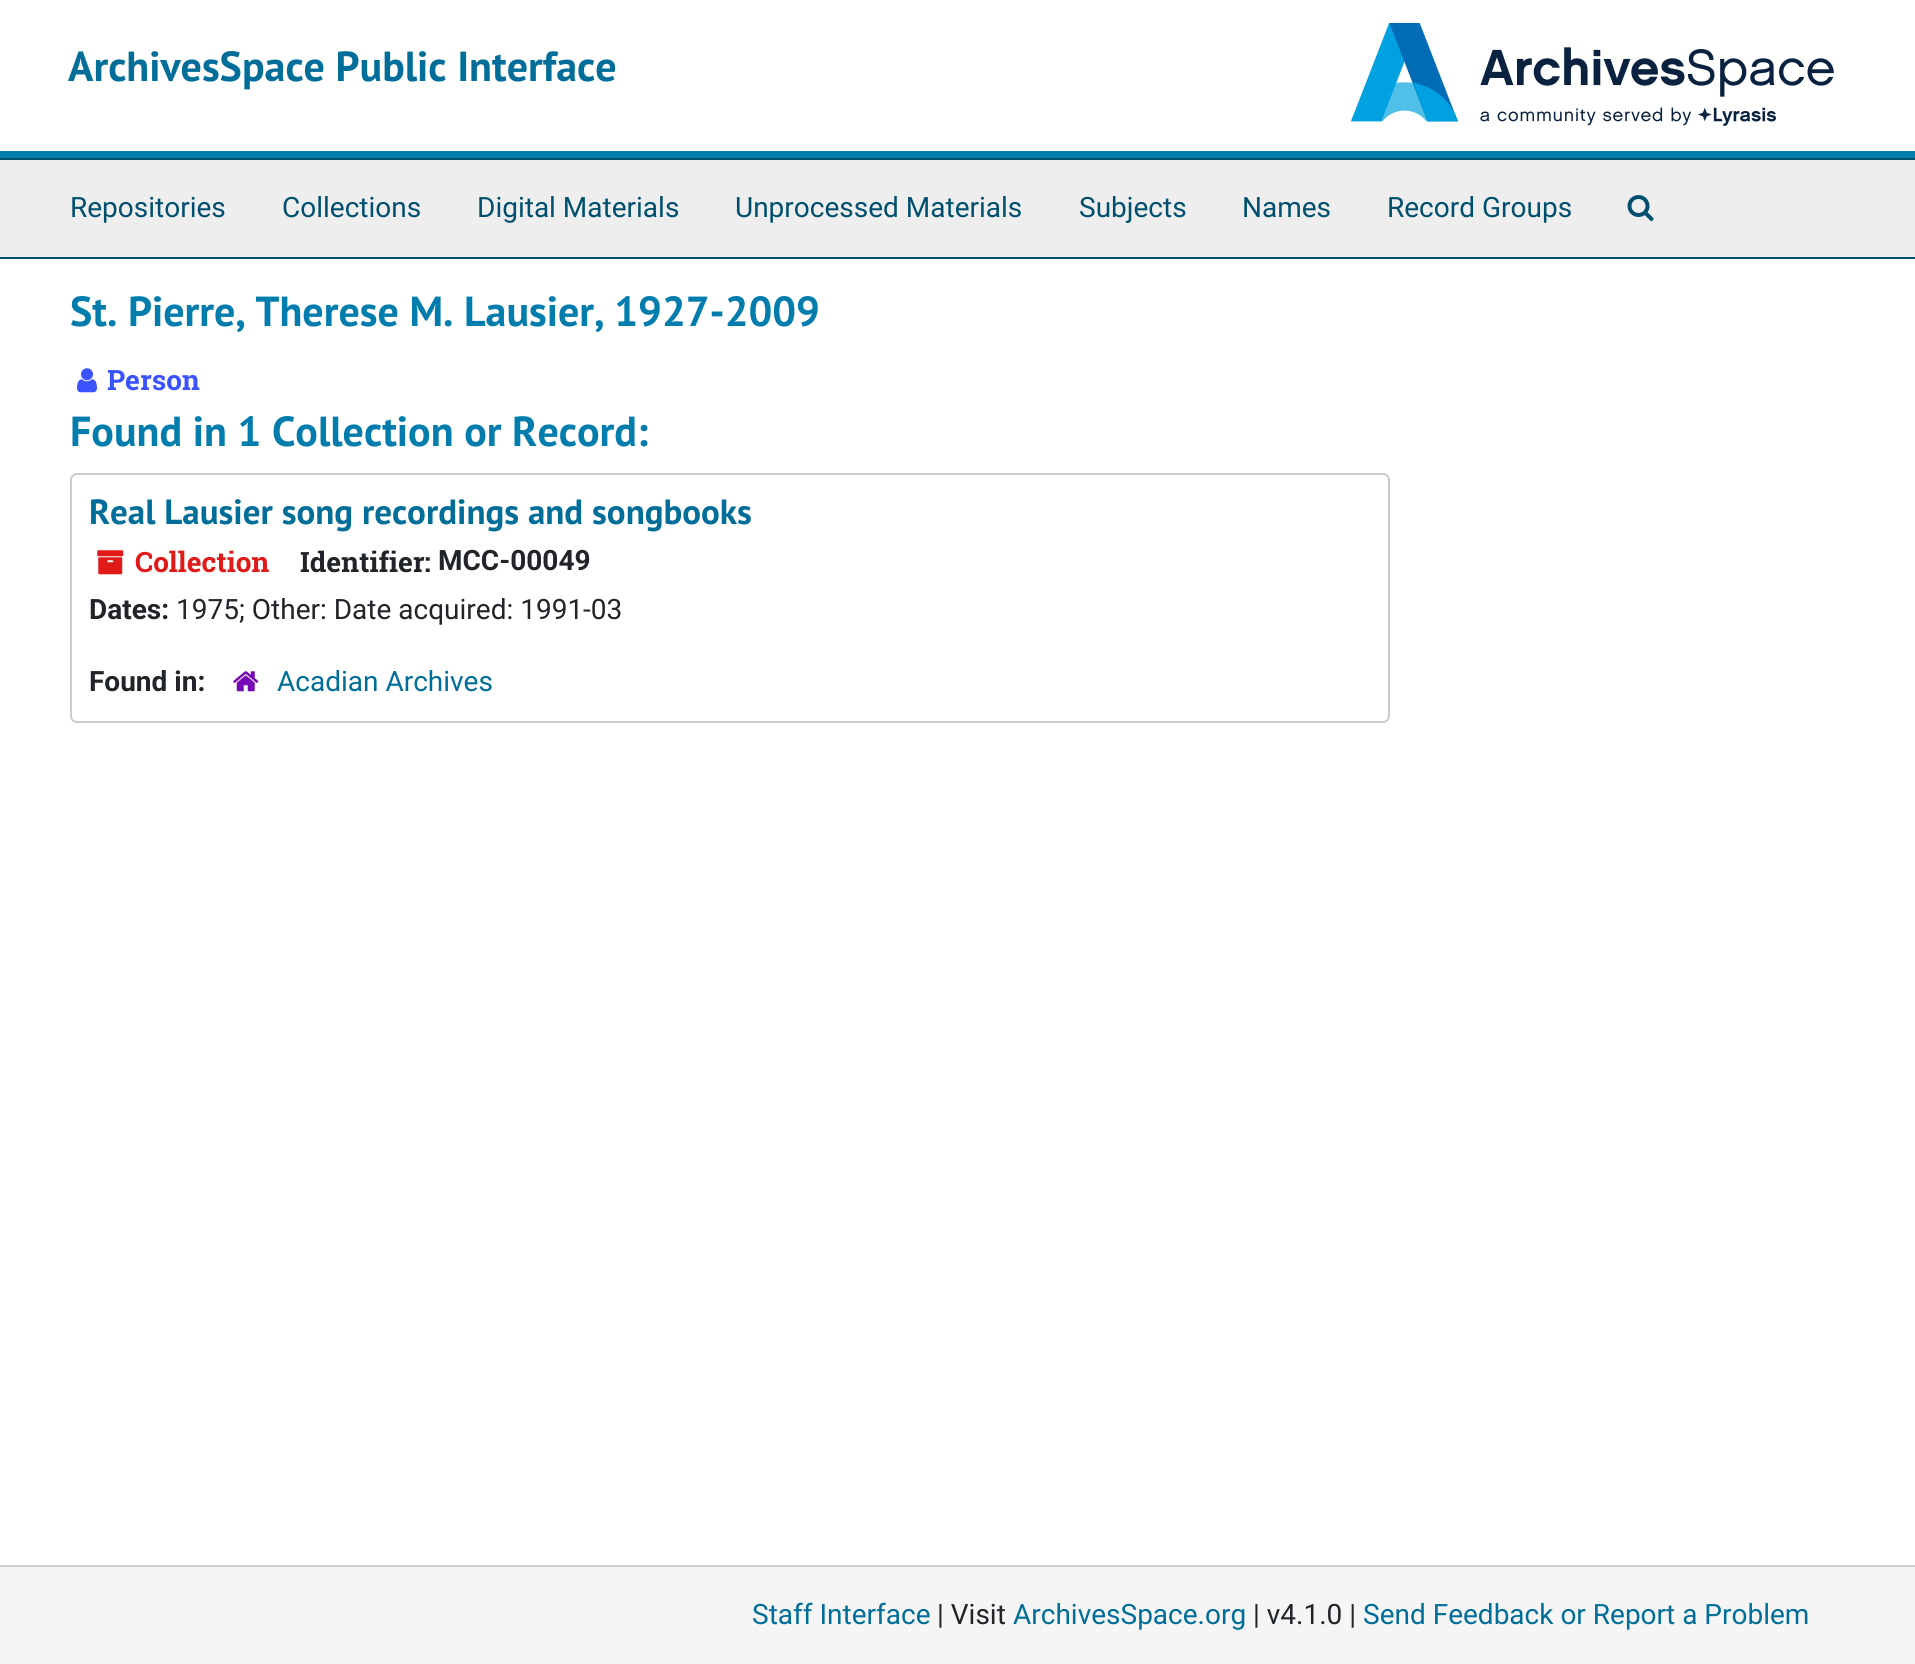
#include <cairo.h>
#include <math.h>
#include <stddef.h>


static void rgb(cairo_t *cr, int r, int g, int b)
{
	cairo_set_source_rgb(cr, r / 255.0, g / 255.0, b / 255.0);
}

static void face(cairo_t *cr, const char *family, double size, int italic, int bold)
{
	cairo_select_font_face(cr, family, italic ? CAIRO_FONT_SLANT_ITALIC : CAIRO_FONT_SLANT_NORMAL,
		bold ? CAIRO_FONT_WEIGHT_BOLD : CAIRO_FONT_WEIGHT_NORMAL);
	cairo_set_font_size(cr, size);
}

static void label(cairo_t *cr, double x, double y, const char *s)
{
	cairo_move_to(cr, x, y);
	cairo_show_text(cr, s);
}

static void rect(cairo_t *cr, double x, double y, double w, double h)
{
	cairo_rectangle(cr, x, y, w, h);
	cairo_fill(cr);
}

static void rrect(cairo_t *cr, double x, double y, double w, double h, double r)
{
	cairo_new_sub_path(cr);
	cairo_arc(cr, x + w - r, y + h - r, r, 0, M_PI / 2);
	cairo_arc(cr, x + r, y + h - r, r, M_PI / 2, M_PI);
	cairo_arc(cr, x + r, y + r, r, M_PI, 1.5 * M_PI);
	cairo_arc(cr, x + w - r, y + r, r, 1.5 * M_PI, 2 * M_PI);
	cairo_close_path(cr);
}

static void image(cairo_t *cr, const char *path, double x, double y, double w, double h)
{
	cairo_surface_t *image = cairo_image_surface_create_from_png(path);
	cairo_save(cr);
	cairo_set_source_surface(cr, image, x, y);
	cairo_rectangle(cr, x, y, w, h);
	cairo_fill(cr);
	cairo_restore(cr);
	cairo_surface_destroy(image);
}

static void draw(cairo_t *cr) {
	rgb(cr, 255, 255, 255);
	cairo_paint(cr);
	rgb(cr, 0, 124, 173);
	rect(cr, 0, 151, 1915, 7);
	face(cr, "PT Sans", 42, 0, 1);
	rgb(cr, 0, 110, 153);
	label(cr, 68, 81, "ArchivesSpace Public Interface");
	image(cr, "image0.png", 1351, 23, 483, 103);
	rgb(cr, 238, 238, 238);
	rect(cr, 0, 160, 1915, 97);
	rgb(cr, 0, 79, 111);
	rect(cr, 0, 158, 1915, 2);
	rect(cr, 0, 257, 1915, 2);
	face(cr, "Roboto", 28, 0, 0);
	label(cr, 70, 217, "Repositories");
	label(cr, 282, 217, "Collections");
	label(cr, 477, 217, "Digital Materials");
	label(cr, 735, 217, "Unprocessed Materials");
	label(cr, 1079, 217, "Subjects");
	label(cr, 1242, 217, "Names");
	label(cr, 1387, 217, "Record Groups");
	image(cr, "image1.png", 1627, 195, 27, 26);
	face(cr, "PT Sans", 42, 0, 1);
	rgb(cr, 0, 124, 173);
	label(cr, 70, 326, "St. Pierre, Therese M. Lausier, 1927-2009");
	image(cr, "image2.png", 77, 368, 20, 25);
	face(cr, "Roboto Slab", 28, 0, 1);
	rgb(cr, 59, 82, 255);
	label(cr, 107, 390, "Person");
	face(cr, "PT Sans", 42, 0, 1);
	rgb(cr, 0, 124, 173);
	label(cr, 70, 446, "Found in 1 Collection or Record:");
	rrect(cr, 71, 474, 1318, 248, 6);
	rgb(cr, 204, 204, 204);
	cairo_stroke(cr);
	face(cr, "PT Sans", 35, 0, 1);
	rgb(cr, 0, 110, 153);
	label(cr, 89, 524, "Real Lausier song recordings and songbooks");
	image(cr, "image3.png", 97, 550, 27, 25);
	face(cr, "Roboto Slab", 28, 0, 1);
	rgb(cr, 224, 25, 25);
	label(cr, 135, 572, "Collection");
	rgb(cr, 33, 37, 41);
	label(cr, 300, 572, "Identifier:");
	face(cr, "Roboto", 28, 0, 1);
	label(cr, 438, 570, "MCC-00049");
	label(cr, 89, 619, "Dates:");
	face(cr, "Roboto", 28, 0, 0);
	label(cr, 176, 619, "1975; Other: Date acquired: 1991-03");
	face(cr, "Roboto", 28, 0, 1);
	label(cr, 89, 691, "Found in:");
	image(cr, "image4.png", 233, 671, 26, 21);
	face(cr, "Roboto", 28, 0, 0);
	rgb(cr, 0, 110, 153);
	label(cr, 277, 691, "Acadian Archives");
	rgb(cr, 245, 245, 245);
	rect(cr, 0, 1567, 1915, 97);
	rgb(cr, 204, 204, 204);
	rect(cr, 0, 1565, 1915, 2);
	rgb(cr, 0, 110, 153);
	label(cr, 752, 1624, "Staff Interface");
	rgb(cr, 33, 37, 41);
	label(cr, 937, 1624, "| Visit");
	rgb(cr, 0, 110, 153);
	label(cr, 1013, 1624, "ArchivesSpace.org");
	rgb(cr, 33, 37, 41);
	label(cr, 1253, 1624, "| v4.1.0 |");
	rgb(cr, 0, 110, 153);
	label(cr, 1363, 1624, "Send Feedback or Report a Problem");
}

int main(void) {
	cairo_surface_t *surface = cairo_image_surface_create(CAIRO_FORMAT_RGB24, 1915, 1664);
	cairo_t *cr = cairo_create(surface);
	cairo_font_options_t *options = cairo_font_options_create();
	cairo_font_options_set_hint_metrics(options, CAIRO_HINT_METRICS_OFF);
	cairo_font_options_set_hint_style(options, CAIRO_HINT_STYLE_NONE);
	cairo_set_font_options(cr, options);
	cairo_set_miter_limit(cr, 4);
	draw(cr);
	cairo_surface_write_to_png(surface, "render.png");
	cairo_font_options_destroy(options);
	cairo_destroy(cr);
	cairo_surface_destroy(surface);
	return 0;
}
